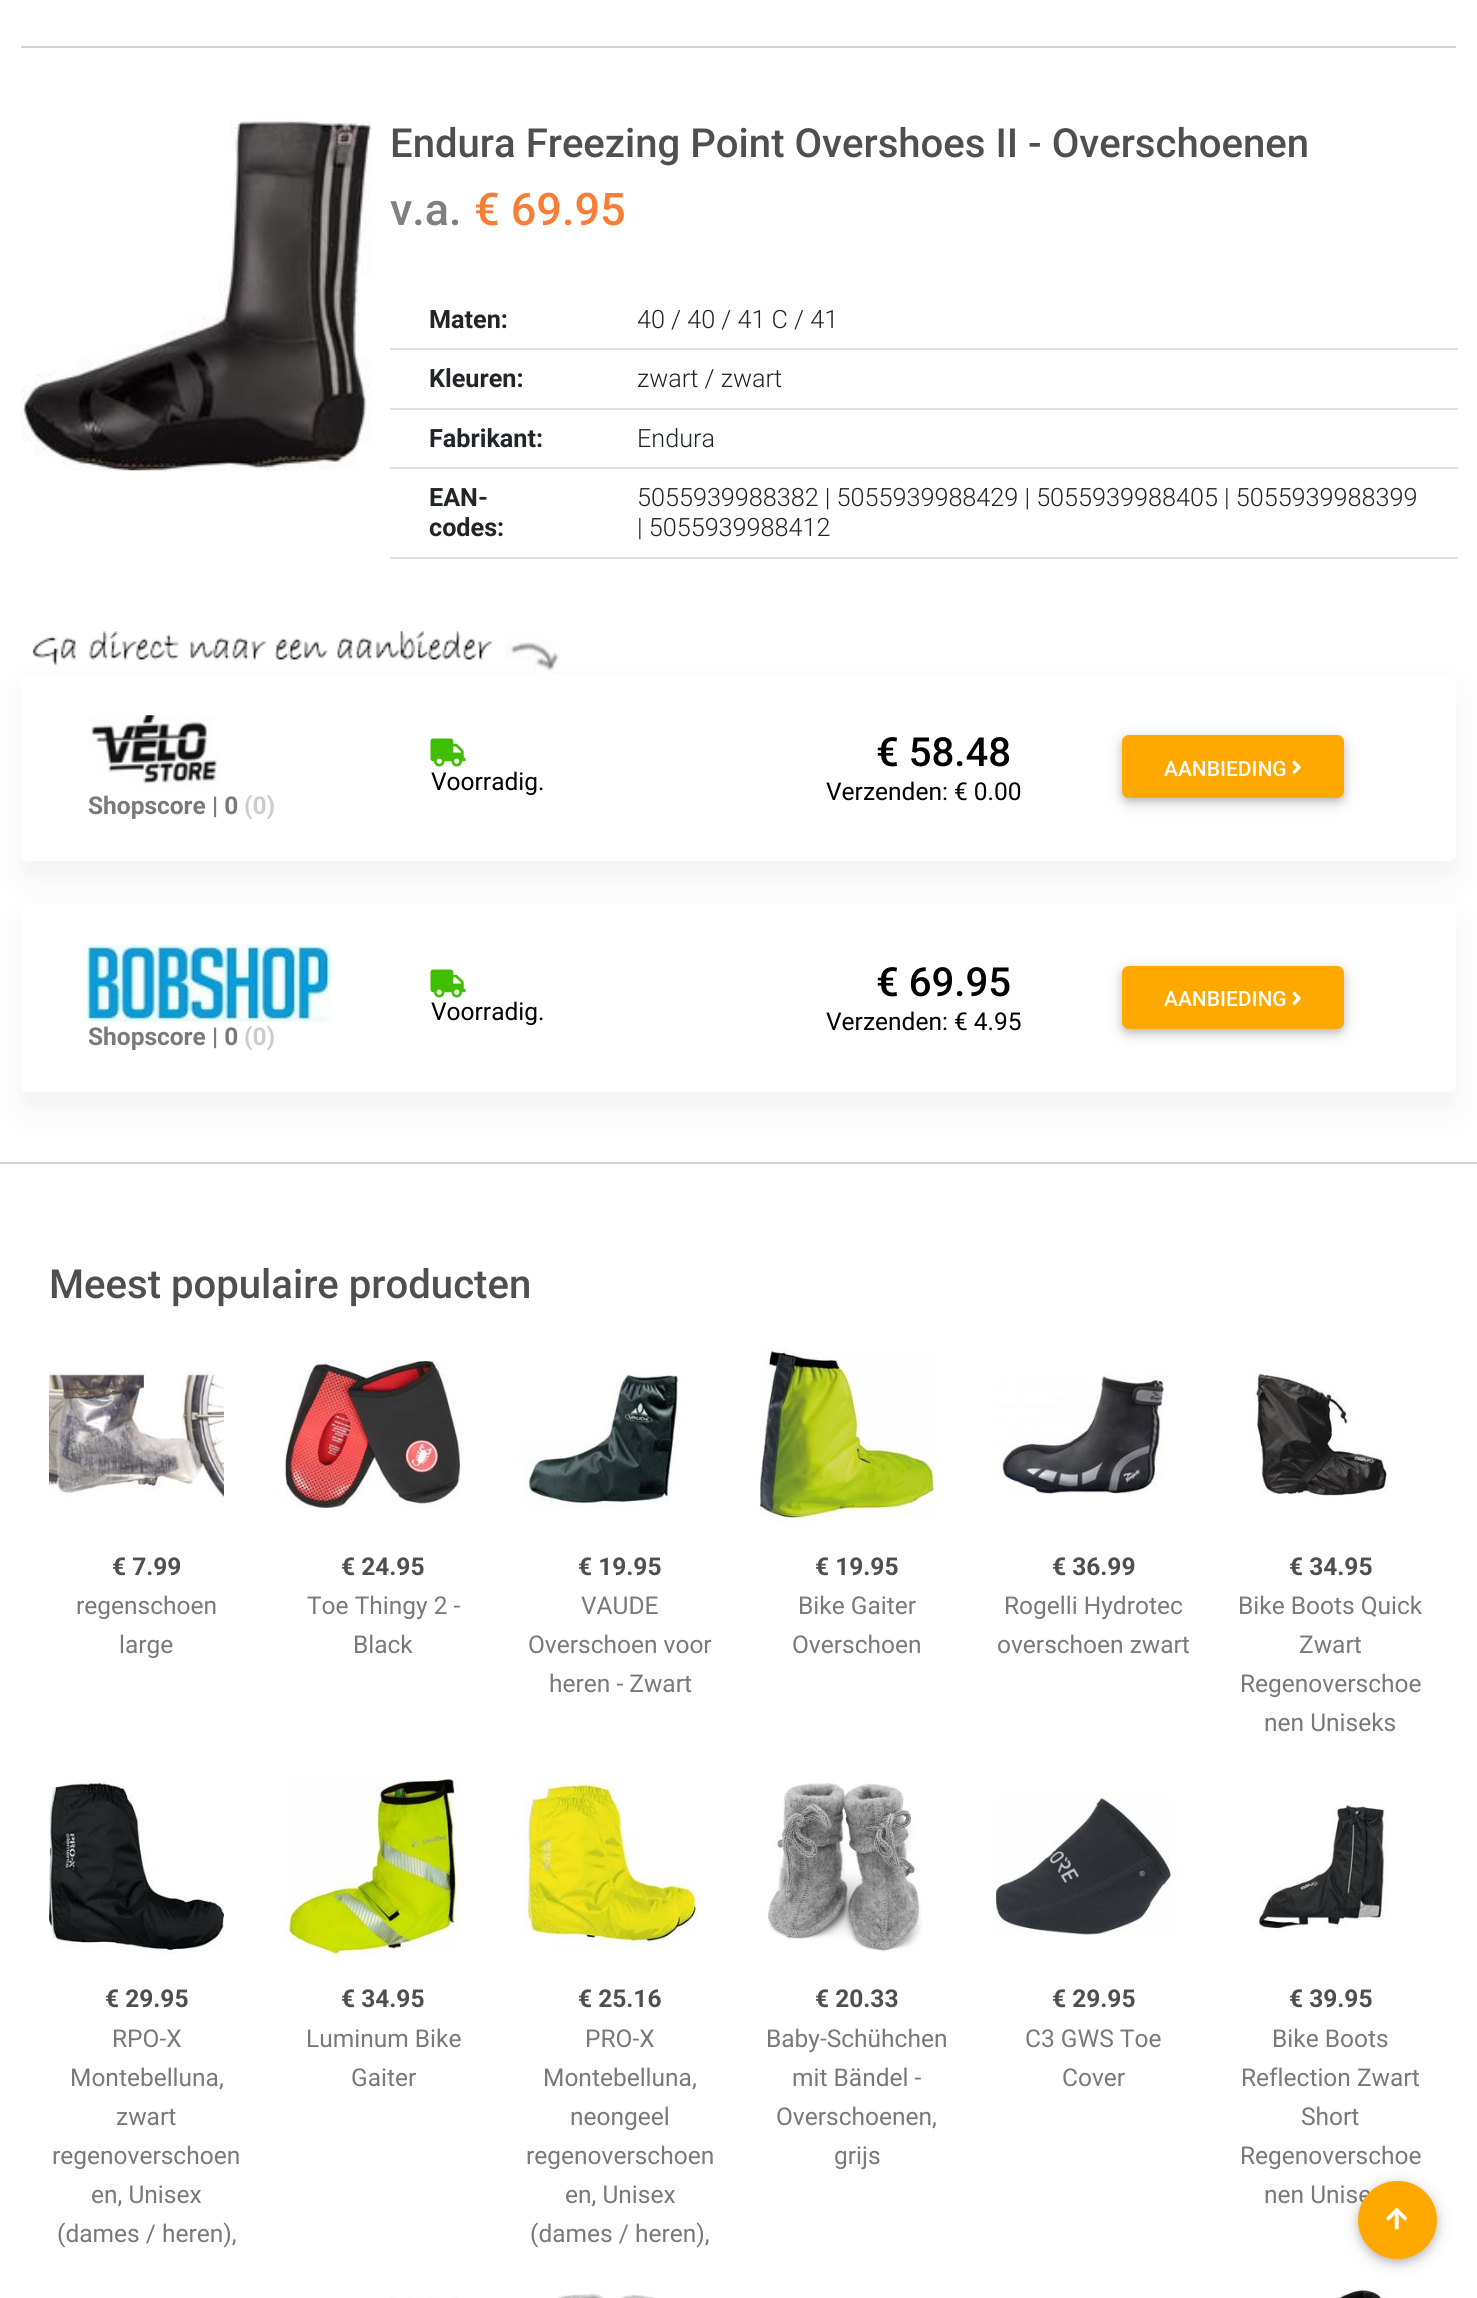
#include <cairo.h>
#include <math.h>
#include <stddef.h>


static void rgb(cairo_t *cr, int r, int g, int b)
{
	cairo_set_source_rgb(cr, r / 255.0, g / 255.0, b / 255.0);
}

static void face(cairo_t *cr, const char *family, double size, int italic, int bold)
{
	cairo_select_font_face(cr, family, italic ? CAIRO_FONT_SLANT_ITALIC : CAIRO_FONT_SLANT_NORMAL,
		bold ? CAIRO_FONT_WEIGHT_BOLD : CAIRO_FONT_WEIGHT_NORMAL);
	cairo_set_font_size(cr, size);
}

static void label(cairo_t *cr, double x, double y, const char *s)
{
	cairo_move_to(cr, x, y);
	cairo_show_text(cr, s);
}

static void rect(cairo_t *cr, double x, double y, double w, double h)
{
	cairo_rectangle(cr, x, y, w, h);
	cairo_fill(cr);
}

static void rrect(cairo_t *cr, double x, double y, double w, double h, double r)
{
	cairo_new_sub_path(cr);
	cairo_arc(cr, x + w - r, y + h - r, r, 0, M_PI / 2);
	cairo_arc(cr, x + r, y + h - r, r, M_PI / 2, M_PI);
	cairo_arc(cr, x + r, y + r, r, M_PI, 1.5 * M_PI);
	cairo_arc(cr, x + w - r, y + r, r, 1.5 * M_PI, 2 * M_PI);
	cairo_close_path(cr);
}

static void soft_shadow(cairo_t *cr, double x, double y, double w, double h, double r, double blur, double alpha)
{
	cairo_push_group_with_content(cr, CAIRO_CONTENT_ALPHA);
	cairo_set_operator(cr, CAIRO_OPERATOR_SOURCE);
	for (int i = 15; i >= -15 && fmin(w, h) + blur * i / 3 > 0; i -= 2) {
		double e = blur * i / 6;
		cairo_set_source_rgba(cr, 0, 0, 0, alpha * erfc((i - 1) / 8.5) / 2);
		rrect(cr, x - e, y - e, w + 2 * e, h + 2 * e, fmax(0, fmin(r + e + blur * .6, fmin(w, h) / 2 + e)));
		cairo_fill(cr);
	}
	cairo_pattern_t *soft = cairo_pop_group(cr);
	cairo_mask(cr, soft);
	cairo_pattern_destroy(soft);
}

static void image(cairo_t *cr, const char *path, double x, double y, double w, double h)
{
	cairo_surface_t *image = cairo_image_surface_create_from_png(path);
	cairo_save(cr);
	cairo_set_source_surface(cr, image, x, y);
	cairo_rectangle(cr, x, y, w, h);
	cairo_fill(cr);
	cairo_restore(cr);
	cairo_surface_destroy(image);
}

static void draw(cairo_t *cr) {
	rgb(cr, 255, 255, 255);
	cairo_paint(cr);
	rgb(cr, 211, 211, 211);
	rect(cr, 21, 46, 1435, 2);
	image(cr, "image0.png", 21, 120, 350, 351);
	face(cr, "Roboto Medium", 40.1, 0, 0);
	rgb(cr, 79, 79, 79);
	label(cr, 390, 157, "Endura Freezing Point Overshoes II - Overschoenen");
	face(cr, "Roboto Medium", 45, 0, 0);
	rgb(cr, 128, 128, 128);
	label(cr, 390, 225, "v.a.");
	rgb(cr, 247, 126, 54);
	label(cr, 474, 225, "€ 69.95");
	face(cr, "Roboto", 25.2, 0, 1);
	rgb(cr, 33, 37, 41);
	label(cr, 429, 328, "Maten:");
	rgb(cr, 224, 224, 224);
	rect(cr, 390, 348, 1068, 2);
	face(cr, "Roboto Light", 25.2, 0, 0);
	rgb(cr, 33, 37, 41);
	label(cr, 637, 328, "40 / 40 / 41 C / 41");
	face(cr, "Roboto", 25.2, 0, 1);
	label(cr, 429, 387, "Kleuren:");
	rgb(cr, 224, 224, 224);
	rect(cr, 390, 408, 1068, 2);
	face(cr, "Roboto Light", 25.2, 0, 0);
	rgb(cr, 33, 37, 41);
	label(cr, 637, 387, "zwart / zwart");
	face(cr, "Roboto", 25.2, 0, 1);
	label(cr, 429, 447, "Fabrikant:");
	rgb(cr, 224, 224, 224);
	rect(cr, 390, 467, 1068, 2);
	face(cr, "Roboto Light", 25.2, 0, 0);
	rgb(cr, 33, 37, 41);
	label(cr, 637, 447, "Endura");
	face(cr, "Roboto", 25.2, 0, 1);
	label(cr, 429, 506, "EAN-");
	label(cr, 429, 536, "codes:");
	rgb(cr, 224, 224, 224);
	rect(cr, 390, 557, 1068, 2);
	face(cr, "Roboto Light", 25.2, 0, 0);
	rgb(cr, 33, 37, 41);
	label(cr, 637, 506, "5055939988382 | 5055939988429 | 5055939988405 | 5055939988399");
	label(cr, 637, 536, "| 5055939988412");
	image(cr, "image1.png", 32, 631, 528, 42);
	rgb(cr, 0, 0, 0);
	soft_shadow(cr, 21, 691, 1435, 188, 7, 17.5, 0.05);
	rgb(cr, 255, 255, 255);
	rrect(cr, 21, 674, 1435, 187, 7);
	cairo_fill(cr);
	face(cr, "Roboto Medium", 40.1, 0, 0);
	rgb(cr, 0, 0, 0);
	label(cr, 876, 766, "€ 58.48");
	face(cr, "Roboto", 24.5, 0, 0);
	label(cr, 826, 800, "Verzenden: € 0.00");
	rgb(cr, 0, 0, 0);
	soft_shadow(cr, 1122, 739, 222, 63, 7, 9, 0.1);
	soft_shadow(cr, 1122, 739, 222, 63, 7, 4.5, 0.2);
	rgb(cr, 255, 169, 0);
	rrect(cr, 1122, 735, 222, 63, 7);
	cairo_fill(cr);
	face(cr, "Roboto Medium", 21, 0, 0);
	rgb(cr, 255, 255, 255);
	label(cr, 1164, 776, "AANBIEDING");
	image(cr, "image2.png", 1292, 760, 9, 14);
	image(cr, "image3.png", 430, 738, 36, 29);
	face(cr, "Roboto", 24.5, 0, 0);
	rgb(cr, 0, 0, 0);
	label(cr, 431, 790, "Voorradig.");
	image(cr, "image4.png", 88, 715, 132, 70);
	face(cr, "Roboto", 24.5, 0, 1);
	rgb(cr, 121, 121, 121);
	label(cr, 88, 814, "Shopscore | 0");
	rgb(cr, 204, 204, 204);
	label(cr, 244, 814, "(0)");
	rgb(cr, 0, 0, 0);
	soft_shadow(cr, 21, 921, 1435, 189, 7, 17.5, 0.05);
	rgb(cr, 255, 255, 255);
	rrect(cr, 21, 903, 1435, 189, 7);
	cairo_fill(cr);
	face(cr, "Roboto Medium", 40.1, 0, 0);
	rgb(cr, 0, 0, 0);
	label(cr, 876, 996, "€ 69.95");
	face(cr, "Roboto", 24.5, 0, 0);
	label(cr, 826, 1030, "Verzenden: € 4.95");
	rgb(cr, 0, 0, 0);
	soft_shadow(cr, 1122, 970, 222, 63, 7, 9, 0.1);
	soft_shadow(cr, 1122, 970, 222, 63, 7, 4.5, 0.2);
	rgb(cr, 255, 169, 0);
	rrect(cr, 1122, 966, 222, 63, 7);
	cairo_fill(cr);
	face(cr, "Roboto Medium", 21, 0, 0);
	rgb(cr, 255, 255, 255);
	label(cr, 1164, 1006, "AANBIEDING");
	image(cr, "image2.png", 1292, 991, 9, 14);
	image(cr, "image3.png", 430, 969, 36, 29);
	face(cr, "Roboto", 24.5, 0, 0);
	rgb(cr, 0, 0, 0);
	label(cr, 431, 1020, "Voorradig.");
	image(cr, "image5.png", 87, 944, 244, 78);
	face(cr, "Roboto", 24.5, 0, 1);
	rgb(cr, 121, 121, 121);
	label(cr, 88, 1045, "Shopscore | 0");
	rgb(cr, 204, 204, 204);
	label(cr, 244, 1045, "(0)");
	rgb(cr, 211, 211, 211);
	rect(cr, 0, 1162, 1477, 2);
	face(cr, "Roboto Medium", 40.1, 0, 0);
	rgb(cr, 79, 79, 79);
	label(cr, 49, 1298, "Meest populaire producten");
	image(cr, "image6.png", 49, 1371, 175, 132);
	face(cr, "Roboto", 24.5, 0, 1);
	label(cr, 112, 1575, "€ 7.99");
	face(cr, "Roboto", 24.5, 0, 0);
	rgb(cr, 121, 121, 121);
	label(cr, 76, 1614, "regenschoen");
	label(cr, 119, 1653, "large");
	image(cr, "image7.png", 285, 1360, 176, 148);
	face(cr, "Roboto", 24.5, 0, 1);
	rgb(cr, 79, 79, 79);
	label(cr, 341, 1575, "€ 24.95");
	face(cr, "Roboto", 24.5, 0, 0);
	rgb(cr, 121, 121, 121);
	label(cr, 307, 1614, "Toe Thingy 2 -");
	label(cr, 353, 1653, "Black");
	image(cr, "image8.png", 524, 1375, 157, 133);
	face(cr, "Roboto", 24.5, 0, 1);
	rgb(cr, 79, 79, 79);
	label(cr, 578, 1575, "€ 19.95");
	face(cr, "Roboto", 24.5, 0, 0);
	rgb(cr, 121, 121, 121);
	label(cr, 581, 1614, "VAUDE");
	label(cr, 528, 1653, "Overschoen voor");
	label(cr, 549, 1692, "heren - Zwart");
	image(cr, "image9.png", 759, 1347, 176, 175);
	face(cr, "Roboto", 24.5, 0, 1);
	rgb(cr, 79, 79, 79);
	label(cr, 815, 1575, "€ 19.95");
	face(cr, "Roboto", 24.5, 0, 0);
	rgb(cr, 121, 121, 121);
	label(cr, 798, 1614, "Bike Gaiter");
	label(cr, 792, 1653, "Overschoen");
	image(cr, "image10.png", 996, 1375, 168, 119);
	face(cr, "Roboto", 24.5, 0, 1);
	rgb(cr, 79, 79, 79);
	label(cr, 1052, 1575, "€ 36.99");
	face(cr, "Roboto", 24.5, 0, 0);
	rgb(cr, 121, 121, 121);
	label(cr, 1004, 1614, "Rogelli Hydrotec");
	label(cr, 997, 1653, "overschoen zwart");
	image(cr, "image11.png", 1255, 1368, 133, 129);
	face(cr, "Roboto", 24.5, 0, 1);
	rgb(cr, 79, 79, 79);
	label(cr, 1289, 1575, "€ 34.95");
	face(cr, "Roboto", 24.5, 0, 0);
	rgb(cr, 121, 121, 121);
	label(cr, 1238, 1614, "Bike Boots Quick");
	label(cr, 1299, 1653, "Zwart");
	label(cr, 1240, 1692, "Regenoverschoe");
	label(cr, 1264, 1731, "nen Uniseks");
	image(cr, "image12.png", 49, 1779, 175, 175);
	face(cr, "Roboto", 24.5, 0, 1);
	rgb(cr, 79, 79, 79);
	label(cr, 105, 2007, "€ 29.95");
	face(cr, "Roboto", 24.5, 0, 0);
	rgb(cr, 121, 121, 121);
	label(cr, 112, 2047, "RPO-X");
	label(cr, 70, 2086, "Montebelluna,");
	label(cr, 116, 2125, "zwart");
	label(cr, 52, 2164, "regenoverschoen");
	label(cr, 91, 2203, "en, Unisex");
	label(cr, 57, 2242, "(dames / heren),");
	image(cr, "image13.png", 285, 1779, 175, 176);
	face(cr, "Roboto", 24.5, 0, 1);
	rgb(cr, 79, 79, 79);
	label(cr, 341, 2007, "€ 34.95");
	face(cr, "Roboto", 24.5, 0, 0);
	rgb(cr, 121, 121, 121);
	label(cr, 306, 2047, "Luminum Bike");
	label(cr, 351, 2086, "Gaiter");
	image(cr, "image14.png", 523, 1779, 175, 168);
	face(cr, "Roboto", 24.5, 0, 1);
	rgb(cr, 79, 79, 79);
	label(cr, 578, 2007, "€ 25.16");
	face(cr, "Roboto", 24.5, 0, 0);
	rgb(cr, 121, 121, 121);
	label(cr, 585, 2047, "PRO-X");
	label(cr, 543, 2086, "Montebelluna,");
	label(cr, 570, 2125, "neongeel");
	label(cr, 526, 2164, "regenoverschoen");
	label(cr, 565, 2203, "en, Unisex");
	label(cr, 530, 2242, "(dames / heren),");
	image(cr, "image15.png", 767, 1782, 155, 170);
	face(cr, "Roboto", 24.5, 0, 1);
	rgb(cr, 79, 79, 79);
	label(cr, 815, 2007, "€ 20.33");
	face(cr, "Roboto", 24.5, 0, 0);
	rgb(cr, 121, 121, 121);
	label(cr, 766, 2047, "Baby-Schühchen");
	label(cr, 792, 2086, "mit Bändel -");
	label(cr, 776, 2125, "Overschoenen,");
	label(cr, 834, 2164, "grijs");
	image(cr, "image16.png", 996, 1793, 175, 142);
	face(cr, "Roboto", 24.5, 0, 1);
	rgb(cr, 79, 79, 79);
	label(cr, 1052, 2007, "€ 29.95");
	face(cr, "Roboto", 24.5, 0, 0);
	rgb(cr, 121, 121, 121);
	label(cr, 1025, 2047, "C3 GWS Toe");
	label(cr, 1062, 2086, "Cover");
	image(cr, "image17.png", 1256, 1800, 132, 132);
	face(cr, "Roboto", 24.5, 0, 1);
	rgb(cr, 79, 79, 79);
	label(cr, 1289, 2007, "€ 39.95");
	face(cr, "Roboto", 24.5, 0, 0);
	rgb(cr, 121, 121, 121);
	label(cr, 1272, 2047, "Bike Boots");
	label(cr, 1241, 2086, "Reflection Zwart");
	label(cr, 1301, 2125, "Short");
	label(cr, 1240, 2164, "Regenoverschoe");
	label(cr, 1264, 2203, "nen Unise");
	image(cr, "image18.png", 391, 2297, 66, 1);
	image(cr, "image19.png", 557, 2293, 98, 5);
	image(cr, "image20.png", 1339, 2290, 48, 8);
	rgb(cr, 0, 0, 0);
	soft_shadow(cr, 1358, 2184, 79, 79, 39.5, 9, 0.1);
	soft_shadow(cr, 1358, 2184, 79, 79, 39.5, 4.5, 0.2);
	rgb(cr, 255, 169, 0);
	rrect(cr, 1358, 2181, 79, 78, 39);
	cairo_fill(cr);
	image(cr, "image21.png", 1386, 2207, 22, 23);
}

int main(void) {
	cairo_surface_t *surface = cairo_image_surface_create(CAIRO_FORMAT_RGB24, 1477, 2298);
	cairo_t *cr = cairo_create(surface);
	cairo_font_options_t *options = cairo_font_options_create();
	cairo_font_options_set_hint_metrics(options, CAIRO_HINT_METRICS_OFF);
	cairo_font_options_set_hint_style(options, CAIRO_HINT_STYLE_NONE);
	cairo_set_font_options(cr, options);
	cairo_set_miter_limit(cr, 4);
	draw(cr);
	cairo_surface_write_to_png(surface, "render.png");
	cairo_font_options_destroy(options);
	cairo_destroy(cr);
	cairo_surface_destroy(surface);
	return 0;
}
